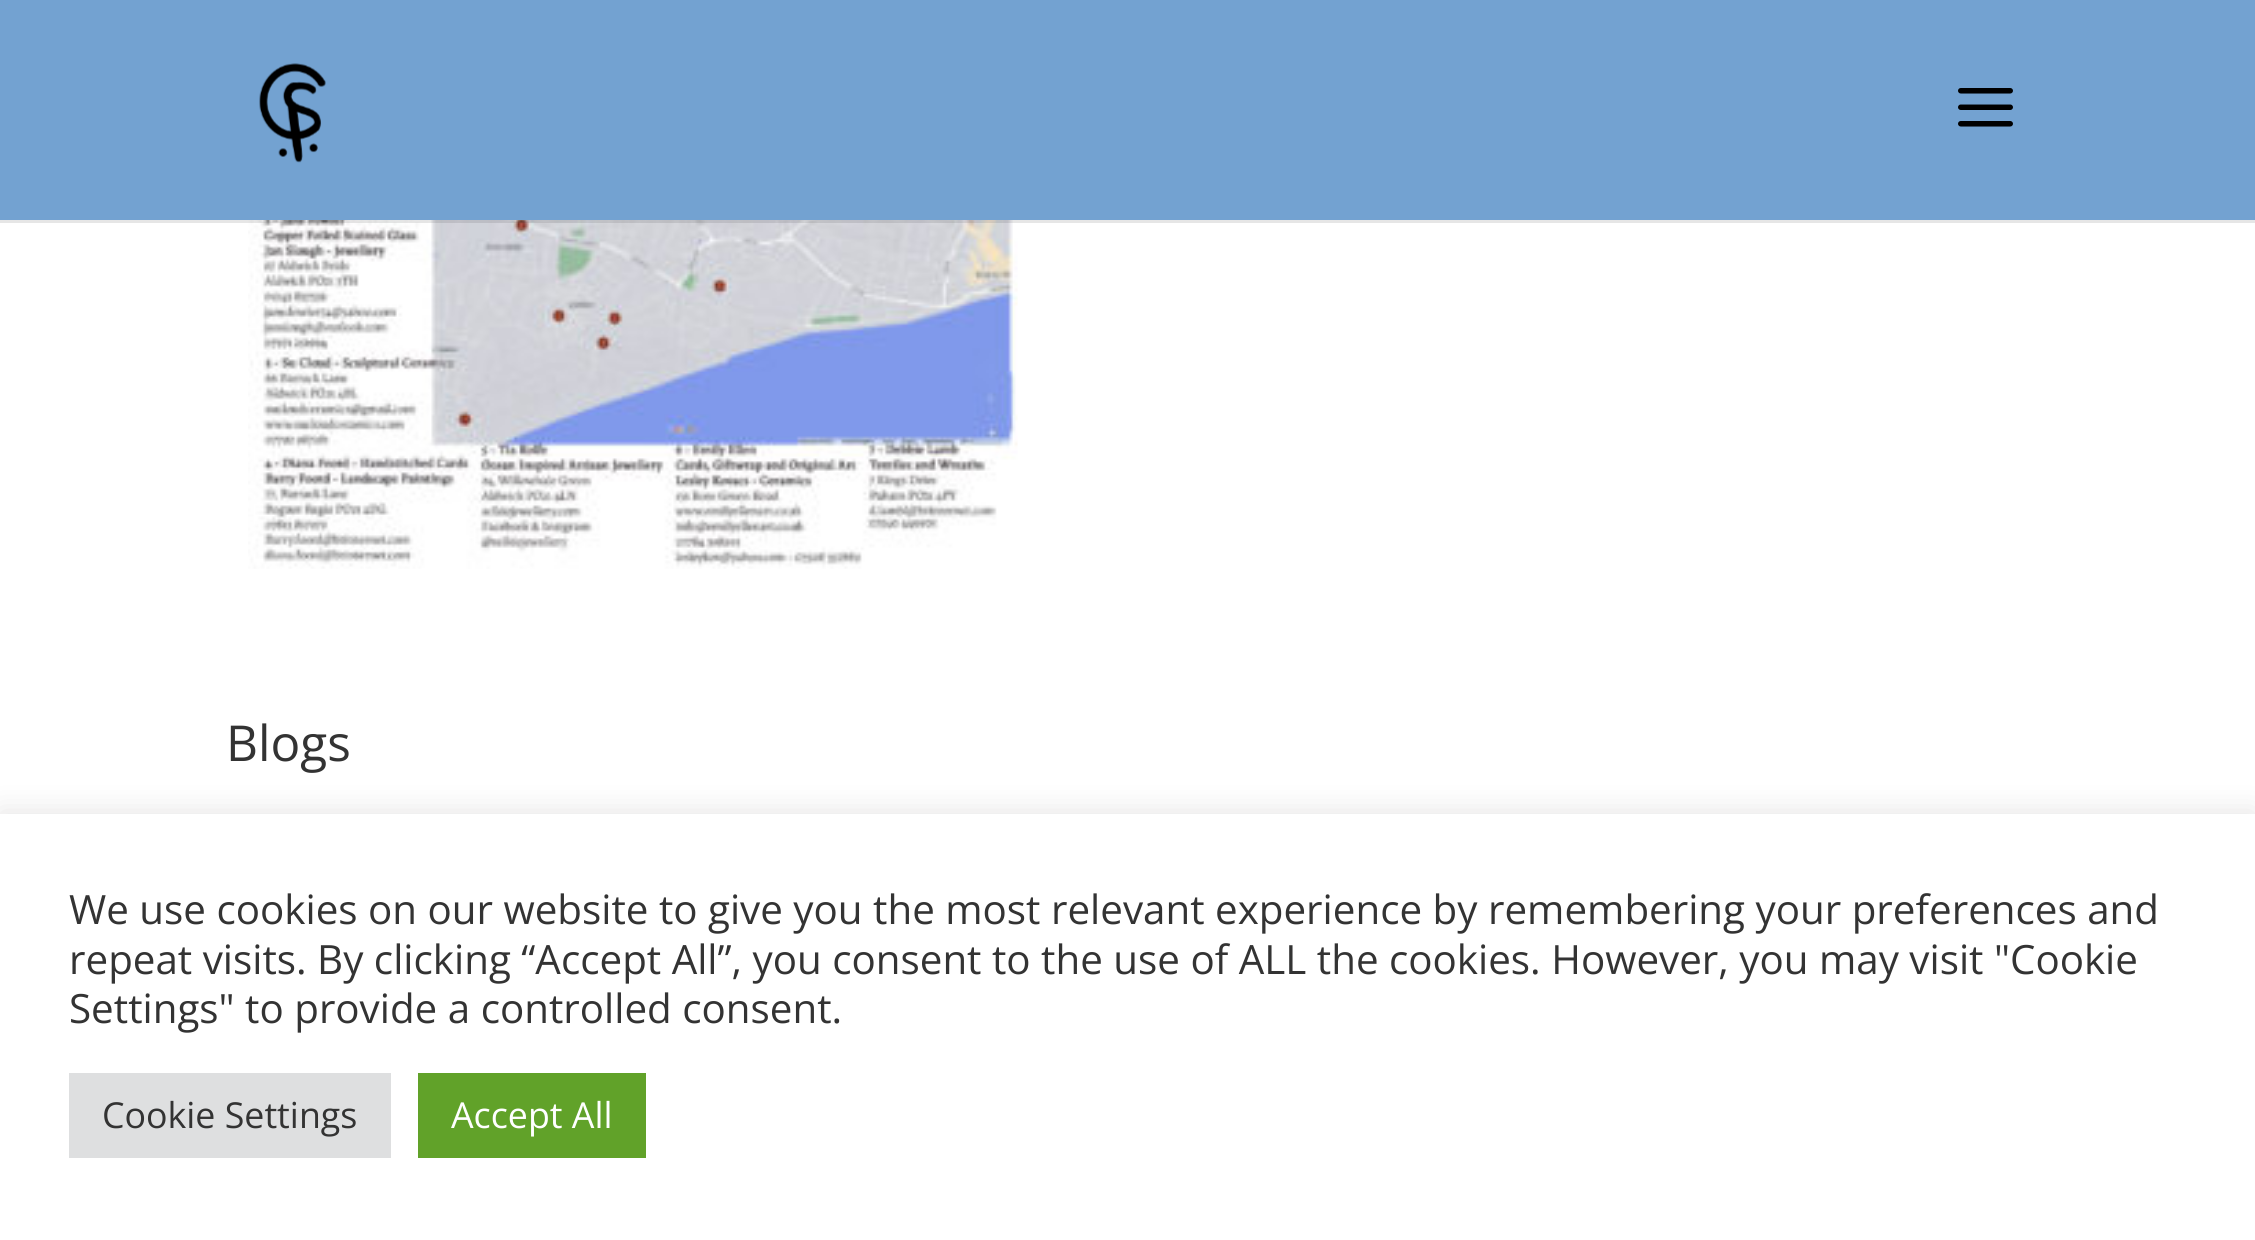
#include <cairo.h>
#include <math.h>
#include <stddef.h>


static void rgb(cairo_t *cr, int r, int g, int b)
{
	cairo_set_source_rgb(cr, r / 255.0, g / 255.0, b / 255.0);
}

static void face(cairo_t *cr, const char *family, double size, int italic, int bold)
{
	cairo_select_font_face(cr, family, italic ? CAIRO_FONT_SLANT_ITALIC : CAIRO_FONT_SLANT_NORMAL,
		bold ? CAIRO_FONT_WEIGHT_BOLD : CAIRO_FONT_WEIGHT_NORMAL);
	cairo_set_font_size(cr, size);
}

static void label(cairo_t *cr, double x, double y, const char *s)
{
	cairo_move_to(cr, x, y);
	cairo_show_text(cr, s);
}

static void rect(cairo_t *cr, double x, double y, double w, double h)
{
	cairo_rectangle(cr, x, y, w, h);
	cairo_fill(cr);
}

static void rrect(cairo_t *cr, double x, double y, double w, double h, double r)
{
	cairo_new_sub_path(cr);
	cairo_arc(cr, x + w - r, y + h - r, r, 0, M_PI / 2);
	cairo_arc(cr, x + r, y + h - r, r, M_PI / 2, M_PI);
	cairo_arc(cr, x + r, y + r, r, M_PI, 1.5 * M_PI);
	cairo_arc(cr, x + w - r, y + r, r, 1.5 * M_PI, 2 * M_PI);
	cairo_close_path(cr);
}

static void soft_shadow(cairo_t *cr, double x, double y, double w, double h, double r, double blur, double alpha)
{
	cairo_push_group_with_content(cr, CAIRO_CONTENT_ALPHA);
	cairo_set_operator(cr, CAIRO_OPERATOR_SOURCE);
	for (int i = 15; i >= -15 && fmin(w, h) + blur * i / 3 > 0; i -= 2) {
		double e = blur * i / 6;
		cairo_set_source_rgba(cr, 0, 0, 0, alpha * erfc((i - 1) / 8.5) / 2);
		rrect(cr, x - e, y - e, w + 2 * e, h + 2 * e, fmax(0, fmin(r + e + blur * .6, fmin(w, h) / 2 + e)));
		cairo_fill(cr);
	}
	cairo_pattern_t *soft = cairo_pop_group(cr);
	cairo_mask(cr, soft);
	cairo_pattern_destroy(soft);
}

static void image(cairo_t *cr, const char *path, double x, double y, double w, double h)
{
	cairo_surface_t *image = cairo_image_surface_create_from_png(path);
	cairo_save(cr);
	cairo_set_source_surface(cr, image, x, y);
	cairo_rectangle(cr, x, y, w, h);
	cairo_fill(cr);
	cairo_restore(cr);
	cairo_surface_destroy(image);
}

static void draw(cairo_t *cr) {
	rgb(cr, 255, 255, 255);
	cairo_paint(cr);
	image(cr, "image2.png", 248, 220, 770, 349);
	cairo_set_source_rgba(cr, 0, 0, 0, 0.1);
	rect(cr, 0, 220, 2255, 3);
	rgb(cr, 115, 162, 209);
	rect(cr, 0, 0, 2255, 220);
	image(cr, "image0.png", 259, 63, 67, 100);
	image(cr, "image1.png", 1958, 88, 55, 39);
	face(cr, "Open Sans", 49.5, 0, 0);
	rgb(cr, 51, 51, 51);
	label(cr, 226, 761, "Blogs");
	rgb(cr, 172, 171, 171);
	soft_shadow(cr, 0, 811, 2255, 427, 0, 14, 0.3);
	rgb(cr, 255, 255, 255);
	rect(cr, 0, 814, 2255, 426);
	face(cr, "Open Sans", 40.33, 0, 0);
	rgb(cr, 51, 51, 51);
	label(cr, 69, 924, "We use cookies on our website to give you the most relevant experience by remembering your preferences and");
	label(cr, 69, 974, "repeat visits. By clicking “Accept All”, you consent to the use of ALL the cookies. However, you may visit \"Cookie");
	label(cr, 69, 1023, "Settings\" to provide a controlled consent.");
	rgb(cr, 222, 223, 224);
	rect(cr, 69, 1073, 322, 85);
	face(cr, "Open Sans", 35.75, 0, 0);
	rgb(cr, 51, 51, 51);
	label(cr, 102, 1128, "Cookie Settings");
	rgb(cr, 97, 162, 41);
	rect(cr, 418, 1073, 228, 85);
	rgb(cr, 255, 255, 255);
	label(cr, 451, 1128, "Accept All");
}

int main(void) {
	cairo_surface_t *surface = cairo_image_surface_create(CAIRO_FORMAT_RGB24, 2255, 1240);
	cairo_t *cr = cairo_create(surface);
	cairo_font_options_t *options = cairo_font_options_create();
	cairo_font_options_set_hint_metrics(options, CAIRO_HINT_METRICS_OFF);
	cairo_font_options_set_hint_style(options, CAIRO_HINT_STYLE_NONE);
	cairo_set_font_options(cr, options);
	cairo_set_miter_limit(cr, 4);
	draw(cr);
	cairo_surface_write_to_png(surface, "render.png");
	cairo_font_options_destroy(options);
	cairo_destroy(cr);
	cairo_surface_destroy(surface);
	return 0;
}
